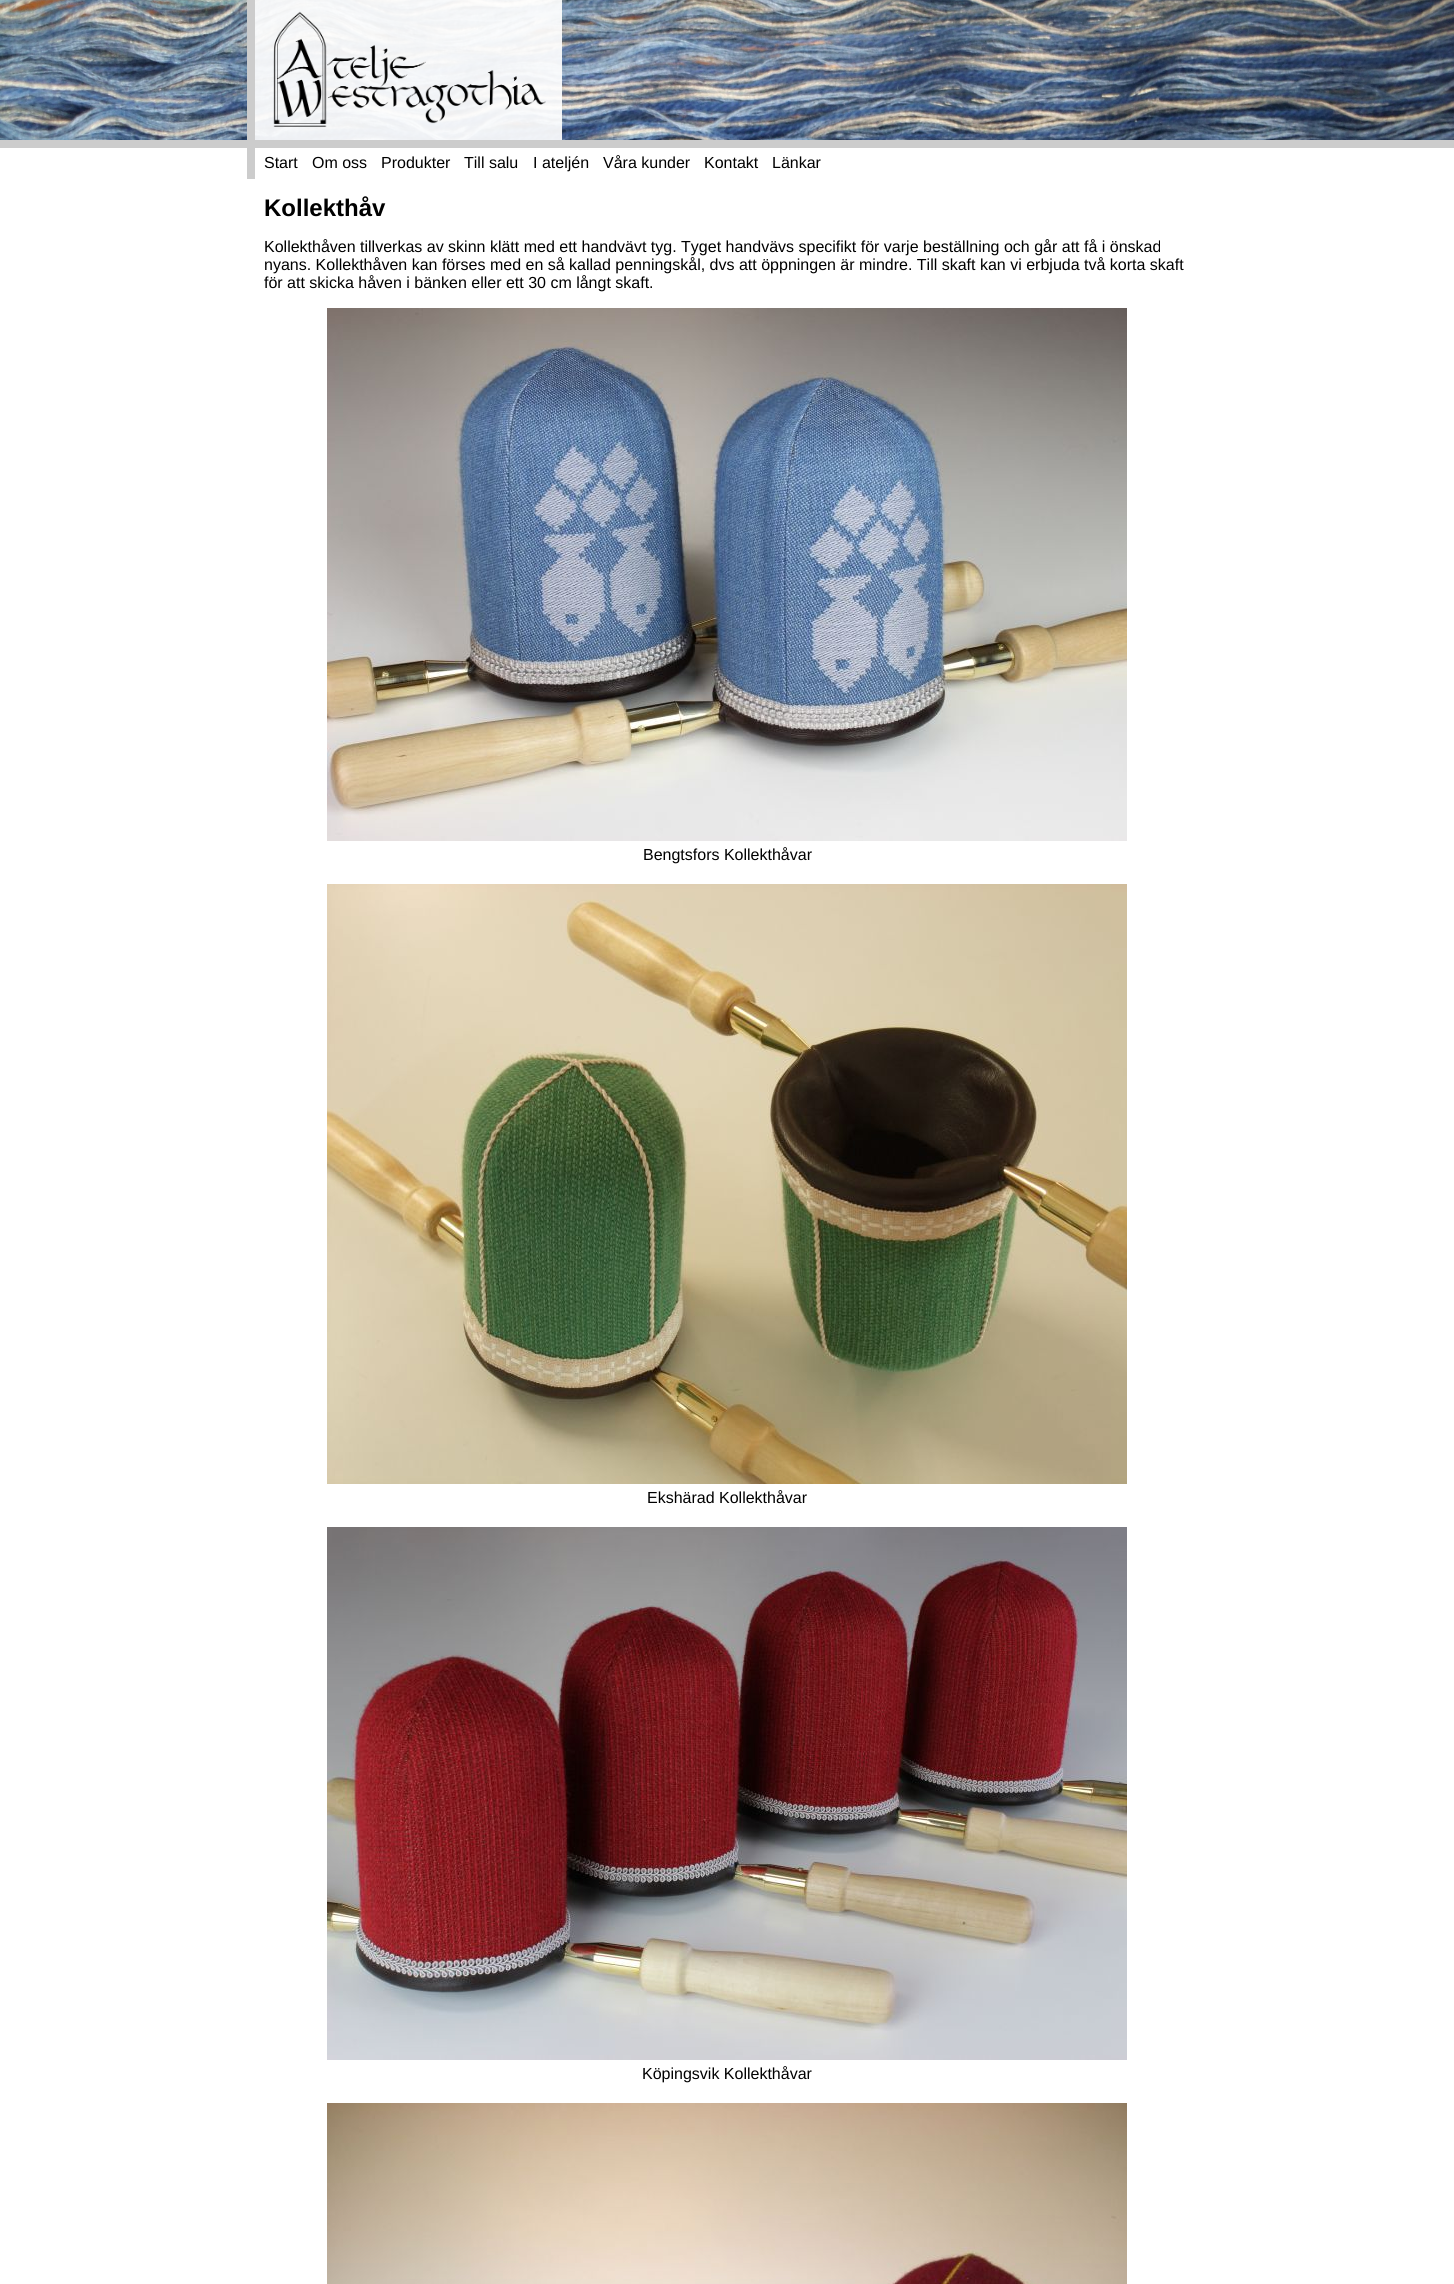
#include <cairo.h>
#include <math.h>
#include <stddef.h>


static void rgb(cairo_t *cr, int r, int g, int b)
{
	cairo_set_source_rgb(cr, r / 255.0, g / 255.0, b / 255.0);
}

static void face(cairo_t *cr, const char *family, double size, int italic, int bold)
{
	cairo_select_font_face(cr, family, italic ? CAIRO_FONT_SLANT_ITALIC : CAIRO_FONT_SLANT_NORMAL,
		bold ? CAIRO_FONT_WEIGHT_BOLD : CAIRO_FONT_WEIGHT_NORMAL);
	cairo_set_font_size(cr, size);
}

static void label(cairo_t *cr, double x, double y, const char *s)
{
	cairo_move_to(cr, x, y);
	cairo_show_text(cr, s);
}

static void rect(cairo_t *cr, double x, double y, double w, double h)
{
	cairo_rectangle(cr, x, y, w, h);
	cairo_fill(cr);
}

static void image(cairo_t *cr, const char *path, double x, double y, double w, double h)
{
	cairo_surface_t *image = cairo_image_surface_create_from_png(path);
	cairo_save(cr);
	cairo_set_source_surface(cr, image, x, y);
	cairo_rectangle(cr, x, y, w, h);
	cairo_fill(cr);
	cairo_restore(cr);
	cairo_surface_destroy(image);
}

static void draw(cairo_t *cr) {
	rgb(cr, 255, 255, 255);
	cairo_paint(cr);
	image(cr, "image0.png", 0, 0, 1454, 140);
	rgb(cr, 204, 204, 204);
	rect(cr, 0, 140, 1454, 8);
	cairo_set_source_rgba(cr, 1, 1, 1, 0.92);
	rect(cr, 255, 0, 307, 140);
	rgb(cr, 204, 204, 204);
	rect(cr, 247, 0, 8, 140);
	image(cr, "image1.png", 273, 11, 273, 116);
	rect(cr, 247, 148, 8, 31);
	face(cr, "Liberation Sans", 16, 0, 0);
	rgb(cr, 0, 0, 0);
	label(cr, 264, 168, "Start");
	label(cr, 312, 168, "Om oss");
	label(cr, 381, 168, "Produkter");
	label(cr, 464, 168, "Till salu");
	label(cr, 533, 168, "I ateljén");
	label(cr, 603, 168, "Våra kunder");
	label(cr, 704, 168, "Kontakt");
	label(cr, 772, 168, "Länkar");
	face(cr, "Liberation Sans", 24, 0, 1);
	label(cr, 264, 216, "Kollekthåv");
	face(cr, "Liberation Sans", 16, 0, 0);
	label(cr, 264, 252, "Kollekthåven tillverkas av skinn klätt med ett handvävt tyg. Tyget handvävs specifikt för varje beställning och går att få i önskad");
	label(cr, 264, 270, "nyans. Kollekthåven kan förses med en så kallad penningskål, dvs att öppningen är mindre. Till skaft kan vi erbjuda två korta skaft");
	label(cr, 264, 288, "för att skicka håven i bänken eller ett 30 cm långt skaft.");
	image(cr, "image2.png", 327, 308, 800, 533);
	label(cr, 643, 860, "Bengtsfors Kollekthåvar");
	image(cr, "image3.png", 327, 884, 800, 600);
	label(cr, 647, 1503, "Ekshärad Kollekthåvar");
	image(cr, "image4.png", 327, 1527, 800, 533);
	label(cr, 642, 2079, "Köpingsvik Kollekthåvar");
	image(cr, "image5.png", 327, 2103, 800, 181);
}

int main(void) {
	cairo_surface_t *surface = cairo_image_surface_create(CAIRO_FORMAT_RGB24, 1454, 2284);
	cairo_t *cr = cairo_create(surface);
	cairo_font_options_t *options = cairo_font_options_create();
	cairo_font_options_set_hint_metrics(options, CAIRO_HINT_METRICS_OFF);
	cairo_font_options_set_hint_style(options, CAIRO_HINT_STYLE_NONE);
	cairo_set_font_options(cr, options);
	cairo_set_miter_limit(cr, 4);
	draw(cr);
	cairo_surface_write_to_png(surface, "render.png");
	cairo_font_options_destroy(options);
	cairo_destroy(cr);
	cairo_surface_destroy(surface);
	return 0;
}
